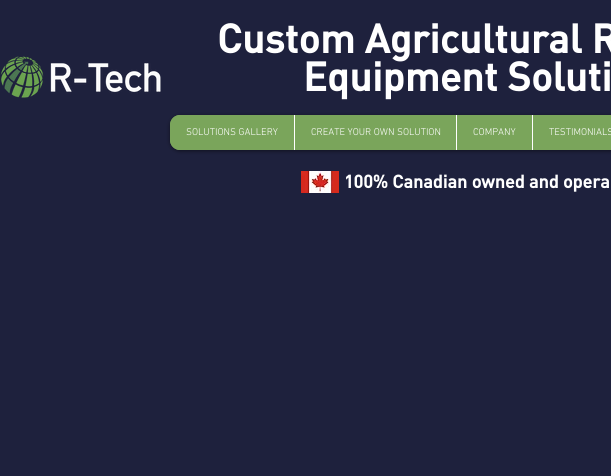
#include <cairo.h>
#include <math.h>
#include <stddef.h>


static void rgb(cairo_t *cr, int r, int g, int b)
{
	cairo_set_source_rgb(cr, r / 255.0, g / 255.0, b / 255.0);
}

static void face(cairo_t *cr, const char *family, double size, int italic, int bold)
{
	cairo_select_font_face(cr, family, italic ? CAIRO_FONT_SLANT_ITALIC : CAIRO_FONT_SLANT_NORMAL,
		bold ? CAIRO_FONT_WEIGHT_BOLD : CAIRO_FONT_WEIGHT_NORMAL);
	cairo_set_font_size(cr, size);
}

static void label(cairo_t *cr, double x, double y, const char *s)
{
	cairo_move_to(cr, x, y);
	cairo_show_text(cr, s);
}

static void rect(cairo_t *cr, double x, double y, double w, double h)
{
	cairo_rectangle(cr, x, y, w, h);
	cairo_fill(cr);
}

static void rrect(cairo_t *cr, double x, double y, double w, double h, double r)
{
	cairo_new_sub_path(cr);
	cairo_arc(cr, x + w - r, y + h - r, r, 0, M_PI / 2);
	cairo_arc(cr, x + r, y + h - r, r, M_PI / 2, M_PI);
	cairo_arc(cr, x + r, y + r, r, M_PI, 1.5 * M_PI);
	cairo_arc(cr, x + w - r, y + r, r, 1.5 * M_PI, 2 * M_PI);
	cairo_close_path(cr);
}

static void soft_shadow(cairo_t *cr, double x, double y, double w, double h, double r, double blur, double alpha)
{
	cairo_push_group_with_content(cr, CAIRO_CONTENT_ALPHA);
	cairo_set_operator(cr, CAIRO_OPERATOR_SOURCE);
	for (int i = 15; i >= -15 && fmin(w, h) + blur * i / 3 > 0; i -= 2) {
		double e = blur * i / 6;
		cairo_set_source_rgba(cr, 0, 0, 0, alpha * erfc((i - 1) / 8.5) / 2);
		rrect(cr, x - e, y - e, w + 2 * e, h + 2 * e, fmax(0, fmin(r + e + blur * .6, fmin(w, h) / 2 + e)));
		cairo_fill(cr);
	}
	cairo_pattern_t *soft = cairo_pop_group(cr);
	cairo_mask(cr, soft);
	cairo_pattern_destroy(soft);
}

static void image(cairo_t *cr, const char *path, double x, double y, double w, double h)
{
	cairo_surface_t *image = cairo_image_surface_create_from_png(path);
	cairo_save(cr);
	cairo_set_source_surface(cr, image, x, y);
	cairo_rectangle(cr, x, y, w, h);
	cairo_fill(cr);
	cairo_restore(cr);
	cairo_surface_destroy(image);
}

static void draw(cairo_t *cr) {
	rgb(cr, 30, 33, 61);
	cairo_paint(cr);
	image(cr, "image0.png", 0, 56, 161, 42);
	face(cr, "DIN", 40, 0, 1);
	rgb(cr, 255, 255, 255);
	label(cr, 217, 53, "Custom Agricultural R");
	label(cr, 303, 91, "Equipment Soluti");
	rgb(cr, 0, 0, 0);
	soft_shadow(cr, 170, 116, 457, 35, 10, 2, 0.52);
	rgb(cr, 122, 165, 91);
	rrect(cr, 170, 115, 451, 35, 10);
	cairo_fill(cr);
	cairo_new_path(cr);
	cairo_move_to(cr, 180, 115);
	cairo_line_to(cr, 294, 115);
	cairo_line_to(cr, 294, 150);
	cairo_line_to(cr, 180, 150);
	cairo_curve_to(cr, 174.5, 150, 170, 145.5, 170, 140);
	cairo_line_to(cr, 170, 125);
	cairo_curve_to(cr, 170, 119.5, 174.5, 115, 180, 115);
	cairo_close_path(cr);
	cairo_fill(cr);
	face(cr, "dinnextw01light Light", 10, 0, 0);
	rgb(cr, 255, 255, 255);
	label(cr, 186, 135, "SOLUTIONS GALLERY");
	rect(cr, 294, 115, 1, 35);
	label(cr, 311, 135, "CREATE YOUR OWN SOLUTION");
	rect(cr, 456, 115, 1, 35);
	label(cr, 473, 135, "COMPANY");
	rect(cr, 532, 115, 1, 35);
	label(cr, 549, 135, "TESTIMONIALS");
	image(cr, "image1.png", 301, 171, 38, 22);
	face(cr, "DIN", 18, 0, 1);
	label(cr, 344, 188, "100% Canadian owned and opera");
}

int main(void) {
	cairo_surface_t *surface = cairo_image_surface_create(CAIRO_FORMAT_RGB24, 611, 476);
	cairo_t *cr = cairo_create(surface);
	cairo_font_options_t *options = cairo_font_options_create();
	cairo_font_options_set_hint_metrics(options, CAIRO_HINT_METRICS_OFF);
	cairo_font_options_set_hint_style(options, CAIRO_HINT_STYLE_NONE);
	cairo_set_font_options(cr, options);
	cairo_set_miter_limit(cr, 4);
	draw(cr);
	cairo_surface_write_to_png(surface, "render.png");
	cairo_font_options_destroy(options);
	cairo_destroy(cr);
	cairo_surface_destroy(surface);
	return 0;
}
